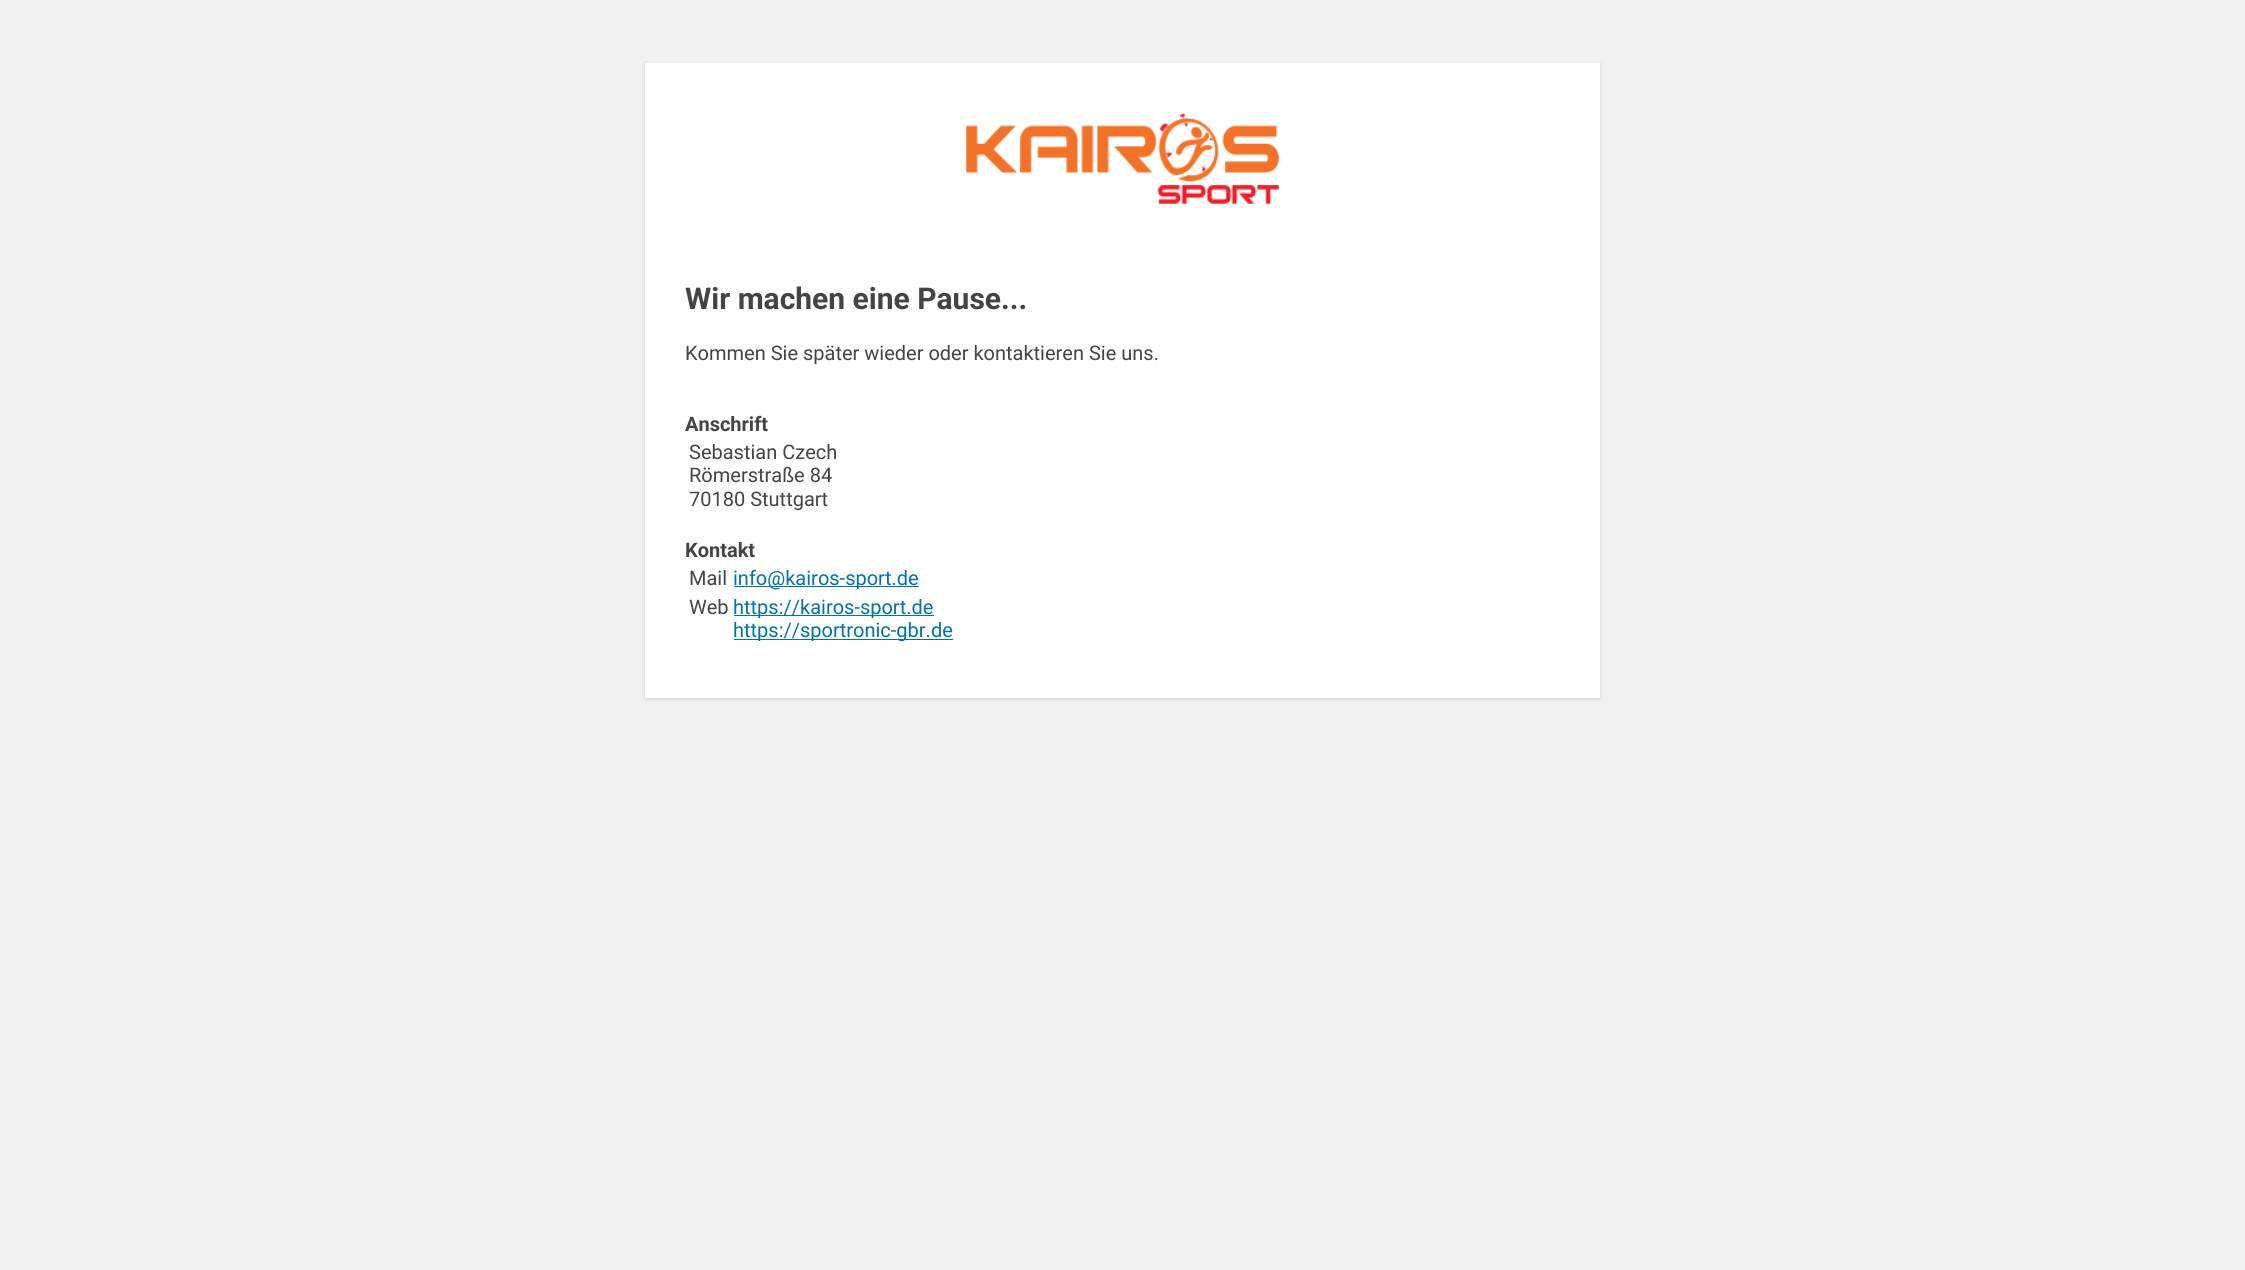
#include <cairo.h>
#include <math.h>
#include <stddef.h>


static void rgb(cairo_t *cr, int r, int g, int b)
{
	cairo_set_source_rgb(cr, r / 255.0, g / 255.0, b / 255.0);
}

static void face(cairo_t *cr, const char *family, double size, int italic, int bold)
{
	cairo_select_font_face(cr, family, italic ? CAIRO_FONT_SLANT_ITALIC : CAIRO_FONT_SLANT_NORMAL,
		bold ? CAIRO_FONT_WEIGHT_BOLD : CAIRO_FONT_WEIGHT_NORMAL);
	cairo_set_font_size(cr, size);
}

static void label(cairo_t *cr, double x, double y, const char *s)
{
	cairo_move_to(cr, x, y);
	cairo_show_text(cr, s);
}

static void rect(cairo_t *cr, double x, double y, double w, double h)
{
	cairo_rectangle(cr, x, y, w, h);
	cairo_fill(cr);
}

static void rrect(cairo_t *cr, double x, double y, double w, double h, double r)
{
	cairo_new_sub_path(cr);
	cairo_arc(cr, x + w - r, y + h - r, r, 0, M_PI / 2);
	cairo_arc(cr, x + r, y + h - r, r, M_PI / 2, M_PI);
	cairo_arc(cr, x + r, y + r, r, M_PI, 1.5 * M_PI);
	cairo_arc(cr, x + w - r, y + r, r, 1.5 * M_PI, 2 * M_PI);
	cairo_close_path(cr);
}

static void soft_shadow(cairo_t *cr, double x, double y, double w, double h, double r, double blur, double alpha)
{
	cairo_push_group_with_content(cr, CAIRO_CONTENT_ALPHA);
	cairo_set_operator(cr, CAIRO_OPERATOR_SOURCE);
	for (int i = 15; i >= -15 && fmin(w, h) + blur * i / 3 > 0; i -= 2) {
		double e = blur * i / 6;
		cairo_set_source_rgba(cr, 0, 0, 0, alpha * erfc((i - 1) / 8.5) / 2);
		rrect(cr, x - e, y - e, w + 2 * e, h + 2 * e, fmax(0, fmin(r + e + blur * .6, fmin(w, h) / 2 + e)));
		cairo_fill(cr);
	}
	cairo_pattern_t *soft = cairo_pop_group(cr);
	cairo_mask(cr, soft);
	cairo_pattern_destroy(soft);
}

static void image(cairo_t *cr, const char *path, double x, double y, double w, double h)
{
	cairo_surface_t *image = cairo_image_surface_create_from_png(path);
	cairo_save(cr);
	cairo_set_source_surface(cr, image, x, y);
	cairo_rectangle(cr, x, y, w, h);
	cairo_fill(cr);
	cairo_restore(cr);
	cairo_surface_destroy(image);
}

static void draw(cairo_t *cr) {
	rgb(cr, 241, 241, 241);
	cairo_paint(cr);
	rgb(cr, 0, 0, 0);
	soft_shadow(cr, 645, 64, 955, 635, 0, 2, 0.13);
	rgb(cr, 255, 255, 255);
	rect(cr, 645, 63, 955, 635);
	image(cr, "image0.png", 966, 113, 313, 91);
	face(cr, "Roboto", 30, 0, 1);
	rgb(cr, 68, 68, 68);
	label(cr, 685, 309, "Wir machen eine Pause...");
	face(cr, "Roboto", 20, 0, 0);
	label(cr, 685, 360, "Kommen Sie später wieder oder kontaktieren Sie uns.");
	face(cr, "Roboto", 20, 0, 1);
	label(cr, 685, 431, "Anschrift");
	face(cr, "Roboto", 20, 0, 0);
	label(cr, 689, 459, "Sebastian Czech");
	label(cr, 689, 482, "Römerstraße 84");
	label(cr, 689, 506, "70180 Stuttgart");
	face(cr, "Roboto", 20, 0, 1);
	label(cr, 685, 557, "Kontakt");
	face(cr, "Roboto", 20, 0, 0);
	label(cr, 689, 585, "Mail");
	rgb(cr, 0, 115, 170);
	rect(cr, 734, 586, 185, 1);
	label(cr, 733, 585, "info@kairos-sport.de");
	rgb(cr, 68, 68, 68);
	label(cr, 689, 614, "Web");
	rgb(cr, 0, 115, 170);
	rect(cr, 734, 615, 200, 1);
	label(cr, 733, 614, "https://kairos-sport.de");
	rect(cr, 734, 639, 219, 1);
	label(cr, 733, 637, "https://sportronic-gbr.de");
}

int main(void) {
	cairo_surface_t *surface = cairo_image_surface_create(CAIRO_FORMAT_RGB24, 2245, 1270);
	cairo_t *cr = cairo_create(surface);
	cairo_font_options_t *options = cairo_font_options_create();
	cairo_font_options_set_hint_metrics(options, CAIRO_HINT_METRICS_OFF);
	cairo_font_options_set_hint_style(options, CAIRO_HINT_STYLE_NONE);
	cairo_set_font_options(cr, options);
	cairo_set_miter_limit(cr, 4);
	draw(cr);
	cairo_surface_write_to_png(surface, "render.png");
	cairo_font_options_destroy(options);
	cairo_destroy(cr);
	cairo_surface_destroy(surface);
	return 0;
}
